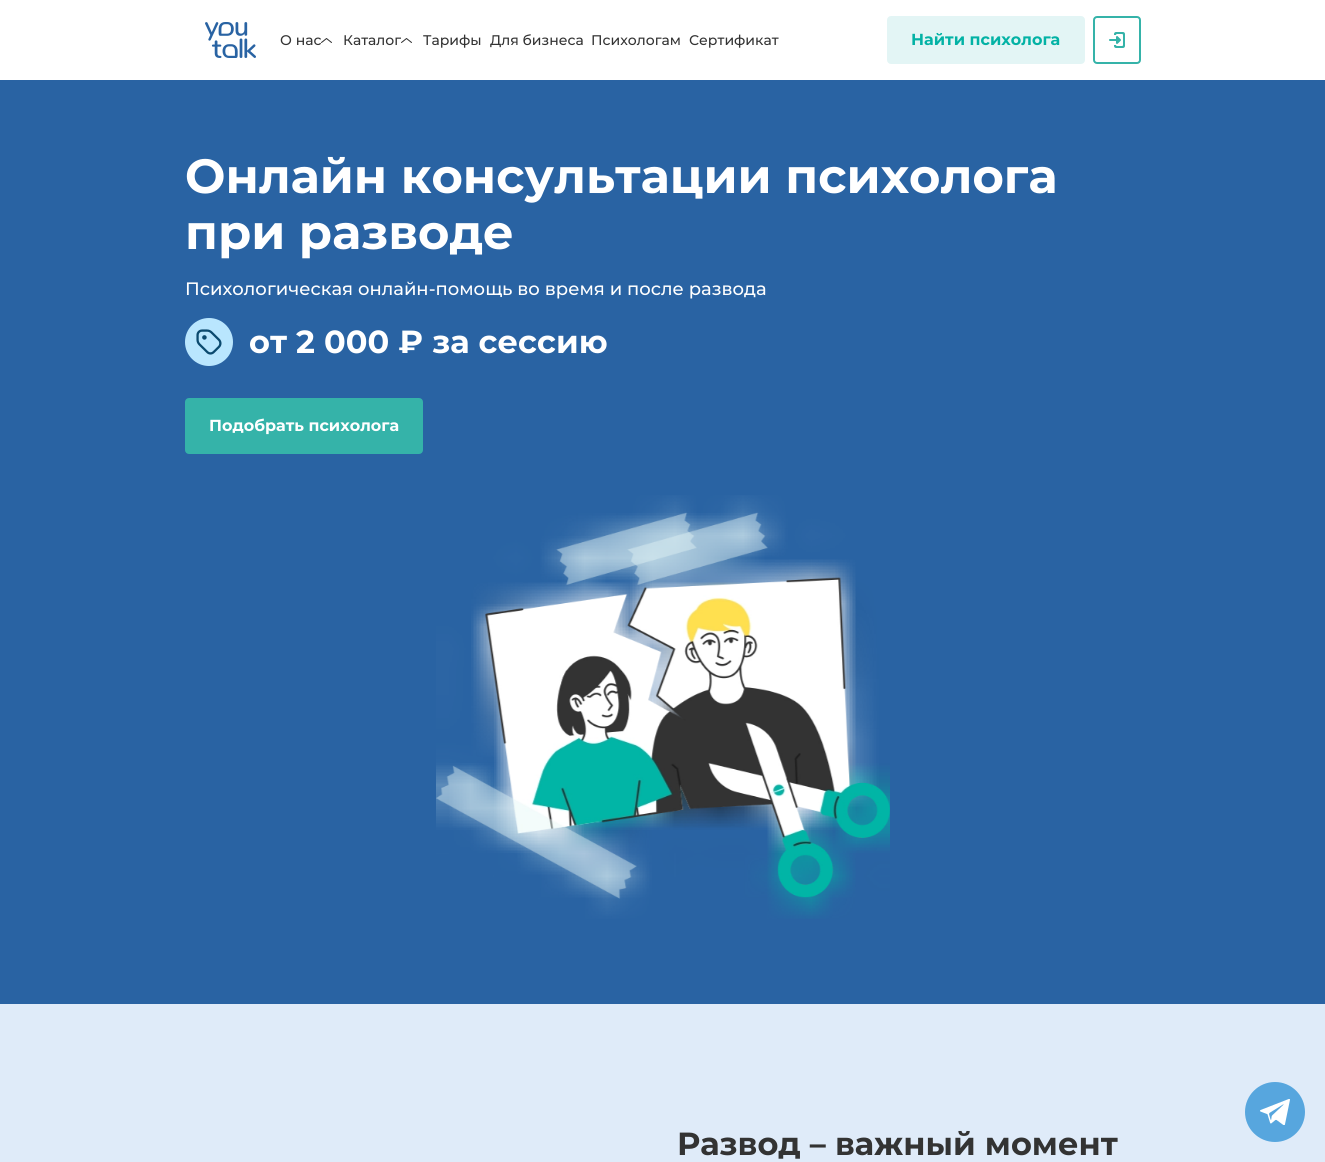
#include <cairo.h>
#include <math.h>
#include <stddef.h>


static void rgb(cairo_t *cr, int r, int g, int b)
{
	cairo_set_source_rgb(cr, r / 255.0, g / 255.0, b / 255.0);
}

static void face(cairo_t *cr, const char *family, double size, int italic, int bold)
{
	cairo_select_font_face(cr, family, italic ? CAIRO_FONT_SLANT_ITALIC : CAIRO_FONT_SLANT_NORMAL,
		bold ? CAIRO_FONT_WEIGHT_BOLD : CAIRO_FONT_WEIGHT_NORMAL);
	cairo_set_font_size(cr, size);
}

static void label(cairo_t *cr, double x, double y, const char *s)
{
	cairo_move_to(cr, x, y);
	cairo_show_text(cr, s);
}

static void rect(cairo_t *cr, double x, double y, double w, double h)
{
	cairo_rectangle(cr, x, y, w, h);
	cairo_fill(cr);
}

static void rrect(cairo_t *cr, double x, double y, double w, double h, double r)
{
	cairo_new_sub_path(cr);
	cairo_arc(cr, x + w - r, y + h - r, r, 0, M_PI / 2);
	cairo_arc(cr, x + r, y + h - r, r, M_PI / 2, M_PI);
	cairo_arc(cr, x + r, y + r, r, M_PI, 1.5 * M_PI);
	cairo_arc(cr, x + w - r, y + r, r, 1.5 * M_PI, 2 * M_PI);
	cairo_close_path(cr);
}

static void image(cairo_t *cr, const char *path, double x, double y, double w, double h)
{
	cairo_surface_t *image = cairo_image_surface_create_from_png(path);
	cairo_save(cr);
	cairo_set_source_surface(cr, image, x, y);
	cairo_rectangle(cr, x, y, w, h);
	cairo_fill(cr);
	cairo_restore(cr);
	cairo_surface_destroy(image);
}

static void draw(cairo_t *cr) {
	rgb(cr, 223, 235, 249);
	cairo_paint(cr);
	rgb(cr, 255, 255, 255);
	rect(cr, 0, 0, 1325, 80);
	image(cr, "image0.png", 205, 22, 51, 36);
	face(cr, "Montserrat Medium", 14, 0, 0);
	rgb(cr, 51, 51, 51);
	label(cr, 280, 45, "О нас");
	cairo_new_path(cr);
	cairo_move_to(cr, 331.5, 42.5);
	cairo_line_to(cr, 326.5, 38.5);
	cairo_line_to(cr, 321.5, 42.5);
	cairo_set_line_width(cr, 1);
	cairo_set_line_cap(cr, CAIRO_LINE_CAP_ROUND);
	cairo_set_line_join(cr, CAIRO_LINE_JOIN_ROUND);
	cairo_stroke(cr);
	label(cr, 343, 45, "Каталог");
	cairo_new_path(cr);
	cairo_move_to(cr, 411.5, 42.5);
	cairo_line_to(cr, 406.5, 38.5);
	cairo_line_to(cr, 401.5, 42.5);
	cairo_stroke(cr);
	label(cr, 423, 45, "Тарифы");
	label(cr, 490, 45, "Для бизнеса");
	label(cr, 591, 45, "Психологам");
	label(cr, 689, 45, "Сертификат");
	rgb(cr, 227, 245, 245);
	rrect(cr, 888, 17, 196, 46, 3);
	cairo_fill_preserve(cr);
	cairo_set_line_width(cr, 2);
	cairo_set_line_cap(cr, CAIRO_LINE_CAP_BUTT);
	cairo_set_line_join(cr, CAIRO_LINE_JOIN_MITER);
	cairo_stroke(cr);
	face(cr, "Montserrat", 16, 0, 1);
	rgb(cr, 3, 178, 165);
	label(cr, 911, 45, "Найти психолога");
	rrect(cr, 1094, 17, 46, 46, 3);
	rgb(cr, 53, 179, 169);
	cairo_stroke(cr);
	image(cr, "image1.png", 1109, 32, 16, 16);
	rgb(cr, 41, 99, 163);
	rect(cr, 0, 80, 1325, 924);
	face(cr, "Montserrat", 48, 0, 1);
	rgb(cr, 255, 255, 255);
	label(cr, 185, 193, "Онлайн консультации психолога");
	label(cr, 185, 249, "при разводе");
	face(cr, "Montserrat Medium", 18, 0, 0);
	label(cr, 185, 295, "Психологическая онлайн-помощь во время и после развода");
	image(cr, "image2.png", 185, 318, 48, 48);
	face(cr, "Montserrat", 32, 0, 1);
	label(cr, 249, 353, "от 2 000 ₽ за сессию");
	rgb(cr, 53, 179, 169);
	rrect(cr, 186, 399, 236, 54, 3);
	cairo_fill_preserve(cr);
	cairo_stroke(cr);
	face(cr, "Montserrat", 16, 0, 1);
	rgb(cr, 255, 255, 255);
	label(cr, 209, 431, "Подобрать психолога");
	image(cr, "image3.png", 436, 495, 454, 424);
	image(cr, "image4.png", 436, 512, 454, 387);
	face(cr, "Montserrat", 32, 0, 1);
	rgb(cr, 51, 51, 51);
	label(cr, 677, 1155, "Развод – важный момент");
	rgb(cr, 87, 166, 222);
	cairo_new_path(cr);
	cairo_arc(cr, 1275, 1112, 30, 0, 2 * M_PI);
	cairo_fill(cr);
	image(cr, "image5.png", 1260, 1099, 30, 26);
}

int main(void) {
	cairo_surface_t *surface = cairo_image_surface_create(CAIRO_FORMAT_RGB24, 1325, 1162);
	cairo_t *cr = cairo_create(surface);
	cairo_font_options_t *options = cairo_font_options_create();
	cairo_font_options_set_hint_metrics(options, CAIRO_HINT_METRICS_OFF);
	cairo_font_options_set_hint_style(options, CAIRO_HINT_STYLE_NONE);
	cairo_set_font_options(cr, options);
	cairo_set_miter_limit(cr, 4);
	draw(cr);
	cairo_surface_write_to_png(surface, "render.png");
	cairo_font_options_destroy(options);
	cairo_destroy(cr);
	cairo_surface_destroy(surface);
	return 0;
}
